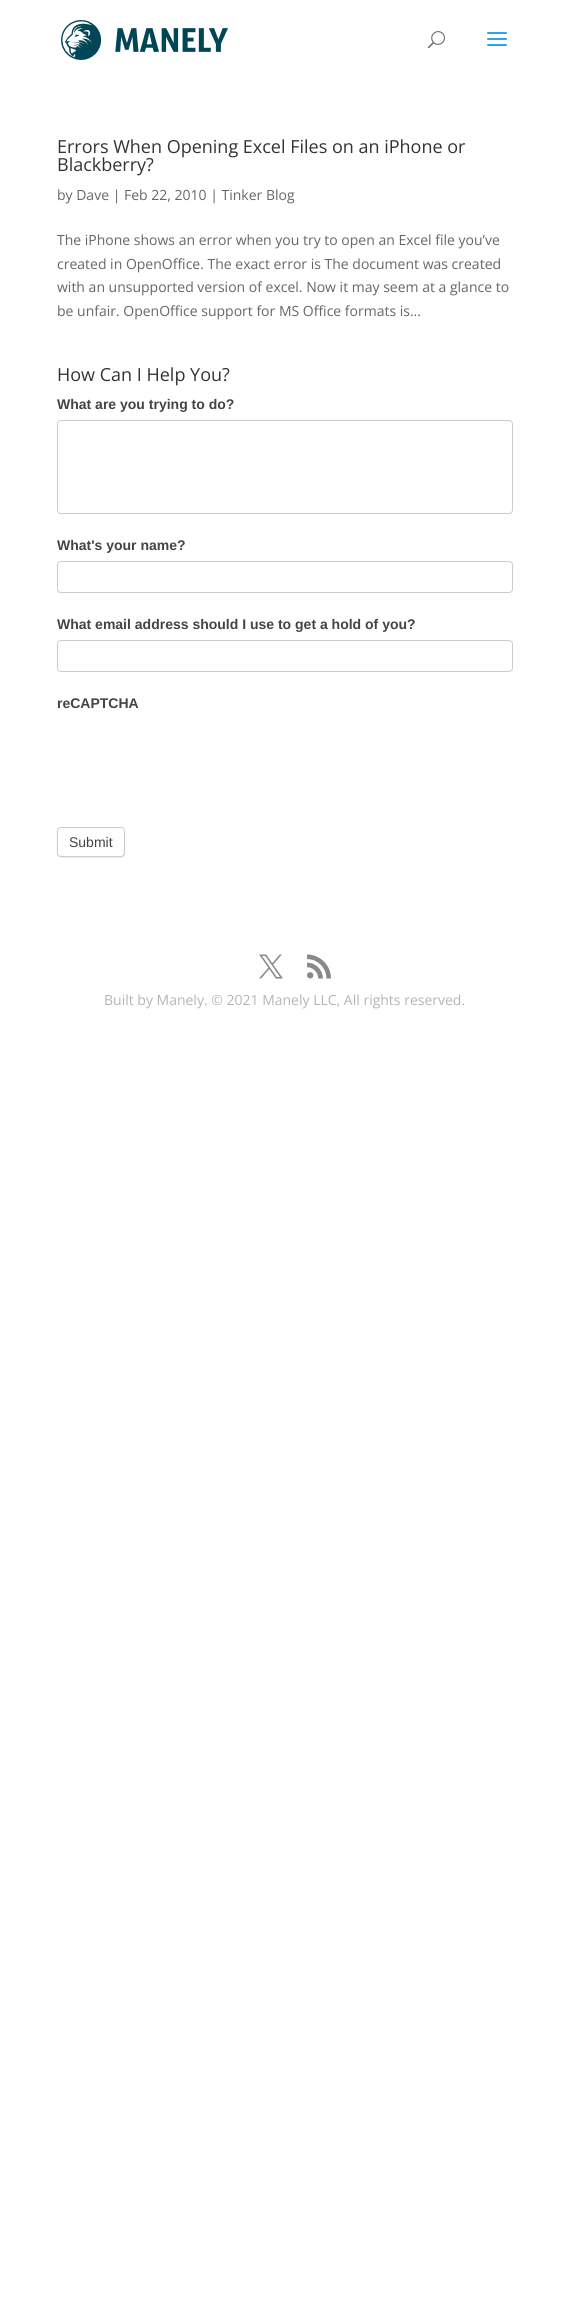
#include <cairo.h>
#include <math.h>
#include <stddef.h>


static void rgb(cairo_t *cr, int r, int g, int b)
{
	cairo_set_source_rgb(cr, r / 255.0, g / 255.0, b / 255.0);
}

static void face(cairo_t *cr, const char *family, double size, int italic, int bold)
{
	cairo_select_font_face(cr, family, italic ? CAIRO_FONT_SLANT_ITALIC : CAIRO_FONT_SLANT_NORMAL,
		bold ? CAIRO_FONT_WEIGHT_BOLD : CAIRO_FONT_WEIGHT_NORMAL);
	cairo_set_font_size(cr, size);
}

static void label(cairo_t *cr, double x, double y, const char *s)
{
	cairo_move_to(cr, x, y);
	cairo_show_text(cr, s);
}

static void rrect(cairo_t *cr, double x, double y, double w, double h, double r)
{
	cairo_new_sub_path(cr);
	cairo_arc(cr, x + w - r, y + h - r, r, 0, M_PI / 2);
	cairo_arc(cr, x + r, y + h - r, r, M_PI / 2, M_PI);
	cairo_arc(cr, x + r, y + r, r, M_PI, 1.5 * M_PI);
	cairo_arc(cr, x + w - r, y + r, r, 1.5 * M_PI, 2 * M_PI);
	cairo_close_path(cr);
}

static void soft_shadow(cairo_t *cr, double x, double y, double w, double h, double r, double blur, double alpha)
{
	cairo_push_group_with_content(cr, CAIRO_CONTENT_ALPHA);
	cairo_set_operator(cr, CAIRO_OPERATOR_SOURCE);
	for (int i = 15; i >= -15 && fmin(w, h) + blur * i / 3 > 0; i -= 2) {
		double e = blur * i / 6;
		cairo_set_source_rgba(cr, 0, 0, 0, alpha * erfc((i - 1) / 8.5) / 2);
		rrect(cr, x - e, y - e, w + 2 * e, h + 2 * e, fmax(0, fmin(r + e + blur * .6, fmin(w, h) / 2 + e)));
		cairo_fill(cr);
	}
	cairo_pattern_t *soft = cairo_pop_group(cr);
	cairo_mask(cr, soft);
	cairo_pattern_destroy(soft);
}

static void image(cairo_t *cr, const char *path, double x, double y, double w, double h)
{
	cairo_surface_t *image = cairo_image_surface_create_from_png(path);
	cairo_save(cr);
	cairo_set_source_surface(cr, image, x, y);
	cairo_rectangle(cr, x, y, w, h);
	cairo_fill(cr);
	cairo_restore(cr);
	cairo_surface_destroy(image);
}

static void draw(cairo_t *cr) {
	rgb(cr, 255, 255, 255);
	cairo_paint(cr);
	image(cr, "image0.png", 61, 20, 167, 40);
	image(cr, "image1.png", 428, 31, 17, 18);
	image(cr, "image2.png", 487, 32, 20, 14);
	face(cr, "Open Sans", 18, 0, 0);
	rgb(cr, 51, 51, 51);
	label(cr, 57, 153, "Errors When Opening Excel Files on an iPhone or");
	label(cr, 57, 171, "Blackberry?");
	face(cr, "Open Sans", 14, 0, 0);
	rgb(cr, 102, 102, 102);
	label(cr, 57, 200, "by Dave | Feb 22, 2010 | Tinker Blog");
	label(cr, 57, 245, "The iPhone shows an error when you try to open an Excel file you’ve");
	label(cr, 57, 269, "created in OpenOffice. The exact error is The document was created");
	label(cr, 57, 292, "with an unsupported version of excel. Now it may seem at a glance to");
	label(cr, 57, 316, "be unfair. OpenOffice support for MS Office formats is...");
	face(cr, "Open Sans", 18, 0, 0);
	rgb(cr, 51, 51, 51);
	label(cr, 57, 381, "How Can I Help You?");
	face(cr, "Liberation Sans", 14, 0, 1);
	rgb(cr, 68, 68, 68);
	label(cr, 57, 409, "What are you trying to do?");
	rrect(cr, 57.5, 420.5, 455, 93, 3.5);
	rgb(cr, 204, 204, 204);
	cairo_set_line_width(cr, 1);
	cairo_stroke(cr);
	rgb(cr, 68, 68, 68);
	label(cr, 57, 550, "What's your name?");
	rrect(cr, 57.5, 561.5, 455, 31, 3.5);
	rgb(cr, 204, 204, 204);
	cairo_stroke(cr);
	rgb(cr, 68, 68, 68);
	label(cr, 57, 629, "What email address should I use to get a hold of you?");
	rrect(cr, 57.5, 640.5, 455, 31, 3.5);
	rgb(cr, 204, 204, 204);
	cairo_stroke(cr);
	rgb(cr, 68, 68, 68);
	label(cr, 57, 708, "reCAPTCHA");
	rgb(cr, 238, 238, 238);
	soft_shadow(cr, 57, 828, 68, 30, 4, 0.5, 1);
	rgb(cr, 255, 255, 255);
	rrect(cr, 57.5, 827.5, 67, 29, 3.5);
	cairo_fill_preserve(cr);
	rgb(cr, 204, 204, 204);
	cairo_stroke(cr);
	face(cr, "Liberation Sans", 14, 0, 0);
	rgb(cr, 68, 68, 68);
	label(cr, 69, 847, "Submit");
	image(cr, "image3.png", 259, 954, 24, 25);
	image(cr, "image4.png", 307, 954, 24, 25);
	face(cr, "Open Sans", 14, 0, 0);
	rgb(cr, 181, 181, 181);
	label(cr, 104, 1005, "Built by Manely. © 2021 Manely LLC, All rights reserved.");
}

int main(void) {
	cairo_surface_t *surface = cairo_image_surface_create(CAIRO_FORMAT_RGB24, 570, 2300);
	cairo_t *cr = cairo_create(surface);
	cairo_font_options_t *options = cairo_font_options_create();
	cairo_font_options_set_hint_metrics(options, CAIRO_HINT_METRICS_OFF);
	cairo_font_options_set_hint_style(options, CAIRO_HINT_STYLE_NONE);
	cairo_set_font_options(cr, options);
	cairo_set_miter_limit(cr, 4);
	draw(cr);
	cairo_surface_write_to_png(surface, "render.png");
	cairo_font_options_destroy(options);
	cairo_destroy(cr);
	cairo_surface_destroy(surface);
	return 0;
}
